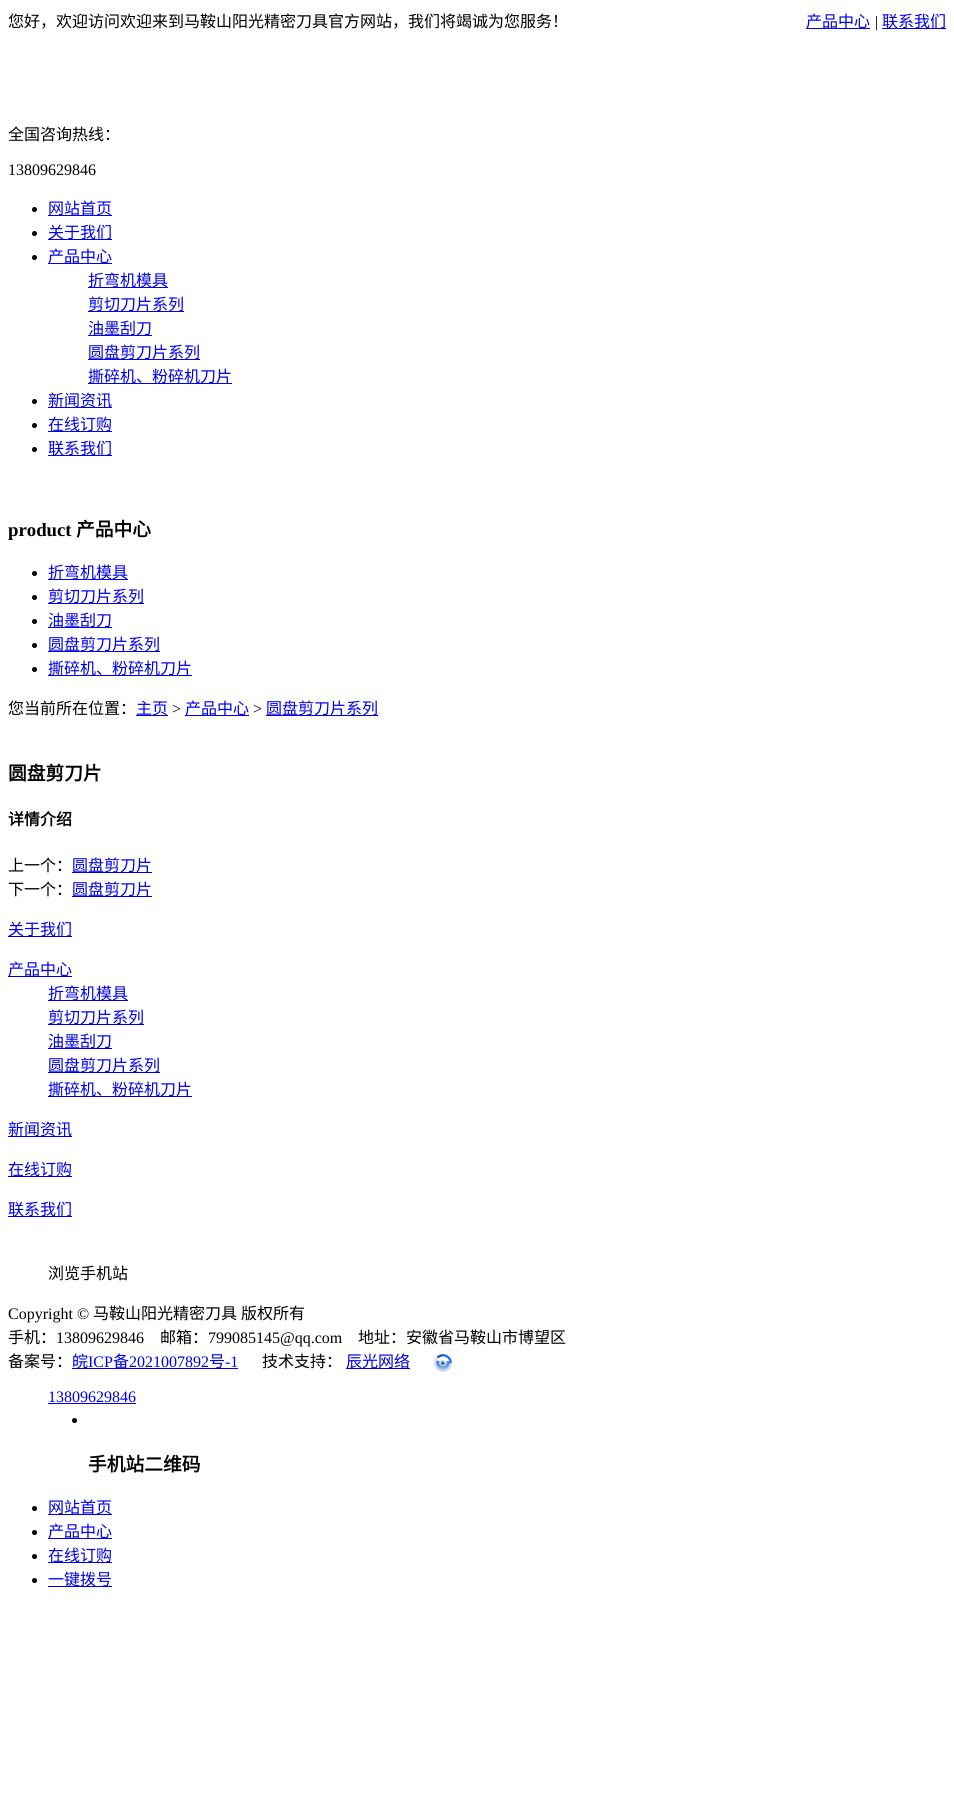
#include <cairo.h>
#include <math.h>
#include <stddef.h>


static void rgb(cairo_t *cr, int r, int g, int b)
{
	cairo_set_source_rgb(cr, r / 255.0, g / 255.0, b / 255.0);
}

static void face(cairo_t *cr, const char *family, double size, int italic, int bold)
{
	cairo_select_font_face(cr, family, italic ? CAIRO_FONT_SLANT_ITALIC : CAIRO_FONT_SLANT_NORMAL,
		bold ? CAIRO_FONT_WEIGHT_BOLD : CAIRO_FONT_WEIGHT_NORMAL);
	cairo_set_font_size(cr, size);
}

static void label(cairo_t *cr, double x, double y, const char *s)
{
	cairo_move_to(cr, x, y);
	cairo_show_text(cr, s);
}

static void rect(cairo_t *cr, double x, double y, double w, double h)
{
	cairo_rectangle(cr, x, y, w, h);
	cairo_fill(cr);
}

static void image(cairo_t *cr, const char *path, double x, double y, double w, double h)
{
	cairo_surface_t *image = cairo_image_surface_create_from_png(path);
	cairo_save(cr);
	cairo_set_source_surface(cr, image, x, y);
	cairo_rectangle(cr, x, y, w, h);
	cairo_fill(cr);
	cairo_restore(cr);
	cairo_surface_destroy(image);
}

static void draw(cairo_t *cr) {
	rgb(cr, 255, 255, 255);
	cairo_paint(cr);
	face(cr, "Noto Sans CJK SC", 16, 0, 0);
	rgb(cr, 0, 0, 0);
	label(cr, 8, 27, "您好，欢迎访问欢迎来到马鞍山阳光精密刀具官方网站，我们将竭诚为您服务！");
	rgb(cr, 0, 0, 238);
	rect(cr, 806, 28, 64, 1);
	label(cr, 806, 27, "产品中心");
	face(cr, "Liberation Serif", 16, 1, 0);
	rgb(cr, 0, 0, 0);
	label(cr, 874, 27, "|");
	rgb(cr, 0, 0, 238);
	rect(cr, 882, 28, 64, 1);
	face(cr, "Noto Sans CJK SC", 16, 0, 0);
	label(cr, 882, 27, "联系我们");
	rgb(cr, 0, 0, 0);
	label(cr, 8, 140, "全国咨询热线：");
	face(cr, "Liberation Serif", 16, 0, 0);
	label(cr, 8, 175, "13809629846");
	cairo_new_path(cr);
	cairo_arc(cr, 34.5, 209.5, 2.5, 0, 2 * M_PI);
	cairo_fill(cr);
	rgb(cr, 0, 0, 238);
	rect(cr, 48, 215, 64, 1);
	face(cr, "Noto Sans CJK SC", 16, 0, 0);
	label(cr, 48, 214, "网站首页");
	rgb(cr, 0, 0, 0);
	cairo_new_path(cr);
	cairo_arc(cr, 34.5, 233.5, 2.5, 0, 2 * M_PI);
	cairo_fill(cr);
	rgb(cr, 0, 0, 238);
	rect(cr, 48, 239, 64, 1);
	label(cr, 48, 238, "关于我们");
	rgb(cr, 0, 0, 0);
	cairo_new_path(cr);
	cairo_arc(cr, 34.5, 257.5, 2.5, 0, 2 * M_PI);
	cairo_fill(cr);
	rgb(cr, 0, 0, 238);
	rect(cr, 48, 263, 64, 1);
	label(cr, 48, 262, "产品中心");
	rect(cr, 88, 287, 80, 1);
	label(cr, 88, 286, "折弯机模具");
	rect(cr, 88, 311, 96, 1);
	label(cr, 88, 310, "剪切刀片系列");
	rect(cr, 88, 335, 64, 1);
	label(cr, 88, 334, "油墨刮刀");
	rect(cr, 88, 359, 112, 1);
	label(cr, 88, 358, "圆盘剪刀片系列");
	rect(cr, 88, 383, 144, 1);
	label(cr, 88, 382, "撕碎机、粉碎机刀片");
	rgb(cr, 0, 0, 0);
	cairo_new_path(cr);
	cairo_arc(cr, 34.5, 401.5, 2.5, 0, 2 * M_PI);
	cairo_fill(cr);
	rgb(cr, 0, 0, 238);
	rect(cr, 48, 407, 64, 1);
	label(cr, 48, 406, "新闻资讯");
	rgb(cr, 0, 0, 0);
	cairo_new_path(cr);
	cairo_arc(cr, 34.5, 425.5, 2.5, 0, 2 * M_PI);
	cairo_fill(cr);
	rgb(cr, 0, 0, 238);
	rect(cr, 48, 431, 64, 1);
	label(cr, 48, 430, "在线订购");
	rgb(cr, 0, 0, 0);
	cairo_new_path(cr);
	cairo_arc(cr, 34.5, 449.5, 2.5, 0, 2 * M_PI);
	cairo_fill(cr);
	rgb(cr, 0, 0, 238);
	rect(cr, 48, 455, 64, 1);
	label(cr, 48, 454, "联系我们");
	face(cr, "Liberation Serif", 18.75, 0, 1);
	rgb(cr, 0, 0, 0);
	label(cr, 8, 536, "product");
	face(cr, "Noto Sans CJK SC", 18.75, 0, 1);
	label(cr, 76, 536, "产品中心");
	cairo_new_path(cr);
	cairo_arc(cr, 34.5, 573.5, 2.5, 0, 2 * M_PI);
	cairo_fill(cr);
	rgb(cr, 0, 0, 238);
	rect(cr, 48, 579, 80, 1);
	face(cr, "Noto Sans CJK SC", 16, 0, 0);
	label(cr, 48, 578, "折弯机模具");
	rgb(cr, 0, 0, 0);
	cairo_new_path(cr);
	cairo_arc(cr, 34.5, 597.5, 2.5, 0, 2 * M_PI);
	cairo_fill(cr);
	rgb(cr, 0, 0, 238);
	rect(cr, 48, 603, 96, 1);
	label(cr, 48, 602, "剪切刀片系列");
	rgb(cr, 0, 0, 0);
	cairo_new_path(cr);
	cairo_arc(cr, 34.5, 621.5, 2.5, 0, 2 * M_PI);
	cairo_fill(cr);
	rgb(cr, 0, 0, 238);
	rect(cr, 48, 627, 64, 1);
	label(cr, 48, 626, "油墨刮刀");
	rgb(cr, 0, 0, 0);
	cairo_new_path(cr);
	cairo_arc(cr, 34.5, 645.5, 2.5, 0, 2 * M_PI);
	cairo_fill(cr);
	rgb(cr, 0, 0, 238);
	rect(cr, 48, 651, 112, 1);
	label(cr, 48, 650, "圆盘剪刀片系列");
	rgb(cr, 0, 0, 0);
	cairo_new_path(cr);
	cairo_arc(cr, 34.5, 669.5, 2.5, 0, 2 * M_PI);
	cairo_fill(cr);
	rgb(cr, 0, 0, 238);
	rect(cr, 48, 675, 144, 1);
	label(cr, 48, 674, "撕碎机、粉碎机刀片");
	rgb(cr, 0, 0, 0);
	label(cr, 8, 714, "您当前所在位置：");
	rgb(cr, 0, 0, 238);
	rect(cr, 136, 715, 32, 1);
	label(cr, 136, 714, "主页");
	face(cr, "Liberation Serif", 16, 0, 0);
	rgb(cr, 0, 0, 0);
	label(cr, 172, 714, ">");
	rgb(cr, 0, 0, 238);
	rect(cr, 185, 715, 64, 1);
	face(cr, "Noto Sans CJK SC", 16, 0, 0);
	label(cr, 185, 714, "产品中心");
	face(cr, "Liberation Serif", 16, 0, 0);
	rgb(cr, 0, 0, 0);
	label(cr, 253, 714, ">");
	rgb(cr, 0, 0, 238);
	rect(cr, 266, 715, 112, 1);
	face(cr, "Noto Sans CJK SC", 16, 0, 0);
	label(cr, 266, 714, "圆盘剪刀片系列");
	face(cr, "Noto Sans CJK SC", 18.75, 0, 1);
	rgb(cr, 0, 0, 0);
	label(cr, 8, 780, "圆盘剪刀片");
	face(cr, "Noto Sans CJK SC", 16, 0, 1);
	label(cr, 8, 825, "详情介绍");
	face(cr, "Noto Sans CJK SC", 16, 0, 0);
	label(cr, 8, 871, "上一个：");
	rgb(cr, 0, 0, 238);
	rect(cr, 72, 872, 80, 1);
	label(cr, 72, 871, "圆盘剪刀片");
	rgb(cr, 0, 0, 0);
	label(cr, 8, 895, "下一个：");
	rgb(cr, 0, 0, 238);
	rect(cr, 72, 896, 80, 1);
	label(cr, 72, 895, "圆盘剪刀片");
	rect(cr, 8, 936, 64, 1);
	label(cr, 8, 935, "关于我们");
	rect(cr, 8, 976, 64, 1);
	label(cr, 8, 975, "产品中心");
	rect(cr, 48, 1000, 80, 1);
	label(cr, 48, 999, "折弯机模具");
	rect(cr, 48, 1024, 96, 1);
	label(cr, 48, 1023, "剪切刀片系列");
	rect(cr, 48, 1048, 64, 1);
	label(cr, 48, 1047, "油墨刮刀");
	rect(cr, 48, 1072, 112, 1);
	label(cr, 48, 1071, "圆盘剪刀片系列");
	rect(cr, 48, 1096, 144, 1);
	label(cr, 48, 1095, "撕碎机、粉碎机刀片");
	rect(cr, 8, 1136, 64, 1);
	label(cr, 8, 1135, "新闻资讯");
	rect(cr, 8, 1176, 64, 1);
	label(cr, 8, 1175, "在线订购");
	rect(cr, 8, 1216, 64, 1);
	label(cr, 8, 1215, "联系我们");
	rgb(cr, 0, 0, 0);
	label(cr, 48, 1279, "浏览手机站");
	face(cr, "Liberation Serif", 16, 0, 0);
	label(cr, 8, 1319, "Copyright ©");
	face(cr, "Noto Sans CJK SC", 16, 0, 0);
	label(cr, 93, 1319, "马鞍山阳光精密刀具");
	label(cr, 241, 1319, "版权所有");
	label(cr, 8, 1343, "手机：");
	face(cr, "Liberation Serif", 16, 0, 0);
	label(cr, 56, 1343, "13809629846");
	face(cr, "Noto Sans CJK SC", 16, 0, 0);
	label(cr, 160, 1343, "邮箱：");
	face(cr, "Liberation Serif", 16, 0, 0);
	label(cr, 208, 1343, "799085145@qq.com");
	face(cr, "Noto Sans CJK SC", 16, 0, 0);
	label(cr, 358, 1343, "地址：安徽省马鞍山市博望区");
	label(cr, 8, 1367, "备案号：");
	rgb(cr, 0, 0, 238);
	rect(cr, 72, 1368, 166, 1);
	label(cr, 72, 1367, "皖");
	face(cr, "Liberation Serif", 16, 0, 0);
	label(cr, 88, 1367, "ICP");
	face(cr, "Noto Sans CJK SC", 16, 0, 0);
	label(cr, 113, 1367, "备");
	face(cr, "Liberation Serif", 16, 0, 0);
	label(cr, 129, 1367, "2021007892");
	face(cr, "Noto Sans CJK SC", 16, 0, 0);
	label(cr, 209, 1367, "号");
	face(cr, "Liberation Serif", 16, 0, 0);
	label(cr, 225, 1367, "-1");
	face(cr, "Noto Sans CJK SC", 16, 0, 0);
	rgb(cr, 0, 0, 0);
	label(cr, 262, 1367, "技术支持：");
	rgb(cr, 0, 0, 238);
	rect(cr, 346, 1368, 64, 1);
	label(cr, 346, 1367, "辰光网络");
	image(cr, "image0.png", 434, 1354, 18, 18);
	face(cr, "Liberation Serif", 16, 0, 0);
	label(cr, 48, 1402, "13809629846");
	rect(cr, 48, 1403, 88, 1);
	rgb(cr, 0, 0, 0);
	cairo_new_path(cr);
	cairo_arc(cr, 74.5, 1420.5, 2.5, 0, 2 * M_PI);
	cairo_fill(cr);
	face(cr, "Noto Sans CJK SC", 18.75, 0, 1);
	label(cr, 88, 1471, "手机站二维码");
	cairo_new_path(cr);
	cairo_arc(cr, 34.5, 1508.5, 2.5, 0, 2 * M_PI);
	cairo_fill(cr);
	rgb(cr, 0, 0, 238);
	rect(cr, 48, 1514, 64, 1);
	face(cr, "Noto Sans CJK SC", 16, 0, 0);
	label(cr, 48, 1513, "网站首页");
	rgb(cr, 0, 0, 0);
	cairo_new_path(cr);
	cairo_arc(cr, 34.5, 1532.5, 2.5, 0, 2 * M_PI);
	cairo_fill(cr);
	rgb(cr, 0, 0, 238);
	rect(cr, 48, 1538, 64, 1);
	label(cr, 48, 1537, "产品中心");
	rgb(cr, 0, 0, 0);
	cairo_new_path(cr);
	cairo_arc(cr, 34.5, 1556.5, 2.5, 0, 2 * M_PI);
	cairo_fill(cr);
	rgb(cr, 0, 0, 238);
	rect(cr, 48, 1562, 64, 1);
	label(cr, 48, 1561, "在线订购");
	rgb(cr, 0, 0, 0);
	cairo_new_path(cr);
	cairo_arc(cr, 34.5, 1580.5, 2.5, 0, 2 * M_PI);
	cairo_fill(cr);
	rgb(cr, 0, 0, 238);
	rect(cr, 48, 1586, 64, 1);
	label(cr, 48, 1585, "一键拨号");
}

int main(void) {
	cairo_surface_t *surface = cairo_image_surface_create(CAIRO_FORMAT_RGB24, 954, 1815);
	cairo_t *cr = cairo_create(surface);
	cairo_font_options_t *options = cairo_font_options_create();
	cairo_font_options_set_hint_metrics(options, CAIRO_HINT_METRICS_OFF);
	cairo_font_options_set_hint_style(options, CAIRO_HINT_STYLE_NONE);
	cairo_set_font_options(cr, options);
	cairo_set_miter_limit(cr, 4);
	draw(cr);
	cairo_surface_write_to_png(surface, "render.png");
	cairo_font_options_destroy(options);
	cairo_destroy(cr);
	cairo_surface_destroy(surface);
	return 0;
}
